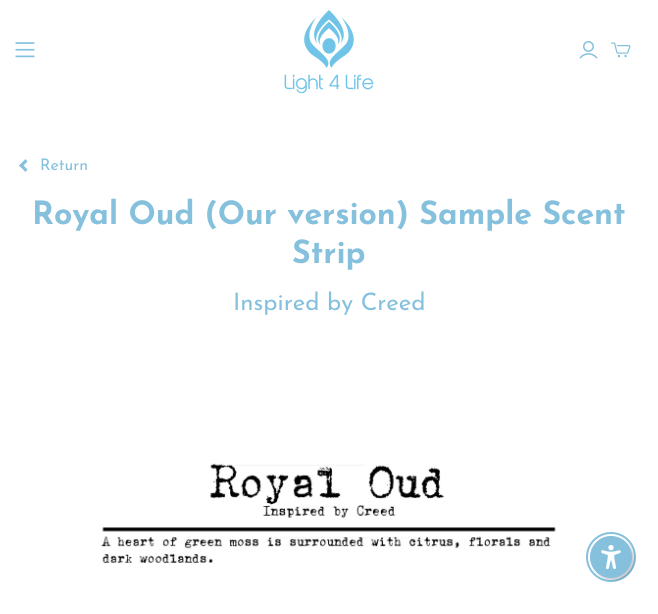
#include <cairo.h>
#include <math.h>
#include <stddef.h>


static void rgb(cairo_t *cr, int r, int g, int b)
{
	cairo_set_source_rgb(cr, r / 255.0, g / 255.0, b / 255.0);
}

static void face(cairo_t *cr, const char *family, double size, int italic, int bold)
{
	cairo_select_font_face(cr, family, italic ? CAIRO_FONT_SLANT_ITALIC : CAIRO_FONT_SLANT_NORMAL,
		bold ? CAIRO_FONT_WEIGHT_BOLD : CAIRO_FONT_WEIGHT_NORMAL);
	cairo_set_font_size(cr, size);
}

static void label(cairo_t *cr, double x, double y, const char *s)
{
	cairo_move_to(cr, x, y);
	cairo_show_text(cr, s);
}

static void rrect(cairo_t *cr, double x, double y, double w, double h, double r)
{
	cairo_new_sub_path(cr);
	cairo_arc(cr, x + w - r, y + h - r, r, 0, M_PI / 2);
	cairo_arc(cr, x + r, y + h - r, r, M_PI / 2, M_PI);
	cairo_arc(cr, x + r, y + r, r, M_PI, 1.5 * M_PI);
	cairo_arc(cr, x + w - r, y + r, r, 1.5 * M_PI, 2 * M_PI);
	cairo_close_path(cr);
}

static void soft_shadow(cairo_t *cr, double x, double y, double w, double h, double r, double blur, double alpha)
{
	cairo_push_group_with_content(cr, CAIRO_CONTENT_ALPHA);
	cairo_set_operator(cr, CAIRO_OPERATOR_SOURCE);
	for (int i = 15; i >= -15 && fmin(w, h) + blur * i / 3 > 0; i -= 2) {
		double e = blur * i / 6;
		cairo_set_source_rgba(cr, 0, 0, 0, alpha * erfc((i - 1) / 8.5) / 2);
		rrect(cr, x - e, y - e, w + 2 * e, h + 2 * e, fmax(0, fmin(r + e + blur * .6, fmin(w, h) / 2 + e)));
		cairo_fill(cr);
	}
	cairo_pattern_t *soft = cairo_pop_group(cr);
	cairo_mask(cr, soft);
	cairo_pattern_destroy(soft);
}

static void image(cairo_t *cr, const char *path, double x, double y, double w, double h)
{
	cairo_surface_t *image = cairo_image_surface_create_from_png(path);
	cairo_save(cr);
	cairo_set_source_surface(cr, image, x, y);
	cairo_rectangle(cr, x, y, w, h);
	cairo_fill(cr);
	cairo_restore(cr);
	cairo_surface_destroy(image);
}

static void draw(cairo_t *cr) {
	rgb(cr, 255, 255, 255);
	cairo_paint(cr);
	image(cr, "image0.png", 284, 10, 90, 84);
	image(cr, "image1.png", 15, 42, 20, 16);
	image(cr, "image2.png", 579, 41, 19, 18);
	image(cr, "image3.png", 611, 42, 20, 16);
	rgb(cr, 133, 192, 221);
	cairo_new_path(cr);
	cairo_move_to(cr, 27.5, 169.5);
	cairo_line_to(cr, 25.5, 172);
	cairo_line_to(cr, 19, 165.5);
	cairo_line_to(cr, 21.5, 163.5);
	cairo_close_path(cr);
	cairo_fill(cr);
	cairo_new_path(cr);
	cairo_move_to(cr, 27.5, 161.5);
	cairo_line_to(cr, 21.5, 167.5);
	cairo_line_to(cr, 19, 165.5);
	cairo_line_to(cr, 25.5, 159);
	cairo_close_path(cr);
	cairo_fill(cr);
	face(cr, "Josefin Sans", 16, 0, 0);
	label(cr, 40, 170, "Return");
	face(cr, "Josefin Sans", 32, 0, 1);
	label(cr, 32, 224, "Royal Oud (Our version) Sample Scent");
	label(cr, 292, 263, "Strip");
	face(cr, "Josefin Sans", 24, 0, 0);
	label(cr, 233, 310, "Inspired by Creed");
	image(cr, "image4.png", 101, 463, 455, 101);
	cairo_arc(cr, 611, 557, 24, 0, 2 * M_PI);
	cairo_stroke(cr);
	rgb(cr, 0, 0, 0);
	soft_shadow(cr, 592, 538, 42, 42, 21, 1, 0.2);
	rgb(cr, 133, 192, 221);
	cairo_arc(cr, 611, 557, 20.5, 0, 2 * M_PI);
	cairo_fill_preserve(cr);
	cairo_set_line_width(cr, 1);
	cairo_stroke(cr);
	image(cr, "image5.png", 601, 545, 20, 24);
}

int main(void) {
	cairo_surface_t *surface = cairo_image_surface_create(CAIRO_FORMAT_RGB24, 658, 614);
	cairo_t *cr = cairo_create(surface);
	cairo_font_options_t *options = cairo_font_options_create();
	cairo_font_options_set_hint_metrics(options, CAIRO_HINT_METRICS_OFF);
	cairo_font_options_set_hint_style(options, CAIRO_HINT_STYLE_NONE);
	cairo_set_font_options(cr, options);
	cairo_set_miter_limit(cr, 4);
	draw(cr);
	cairo_surface_write_to_png(surface, "render.png");
	cairo_font_options_destroy(options);
	cairo_destroy(cr);
	cairo_surface_destroy(surface);
	return 0;
}
